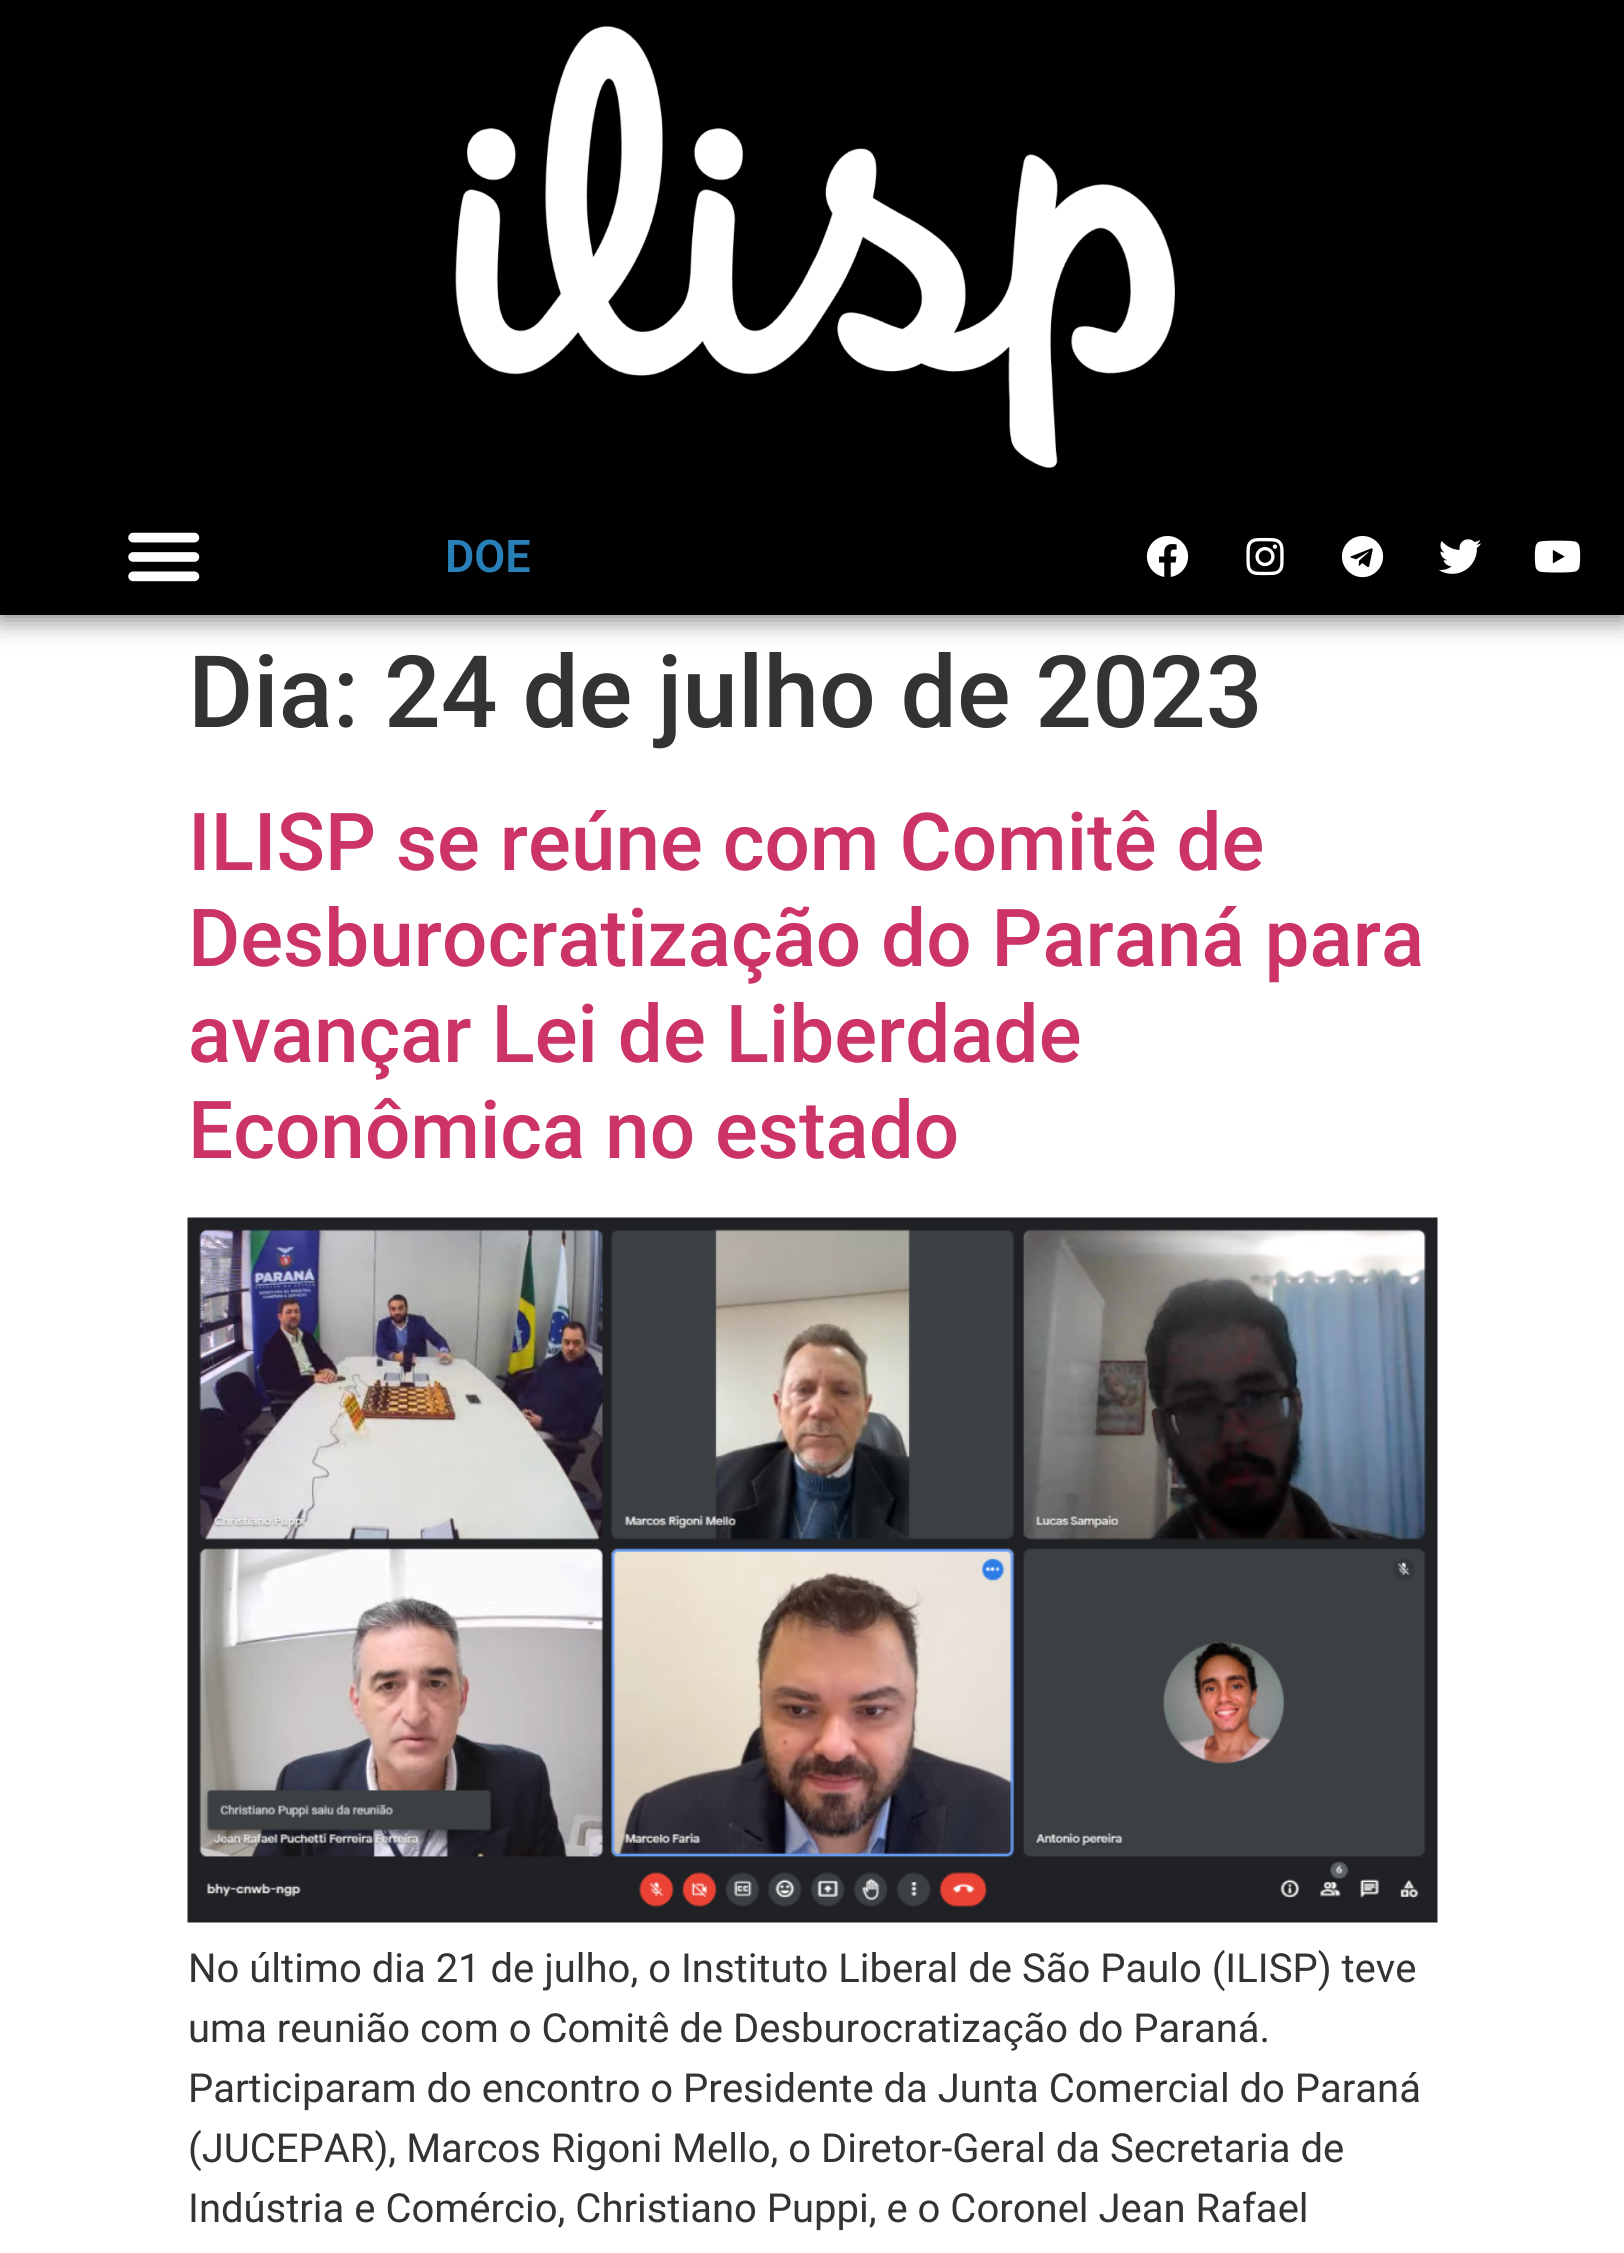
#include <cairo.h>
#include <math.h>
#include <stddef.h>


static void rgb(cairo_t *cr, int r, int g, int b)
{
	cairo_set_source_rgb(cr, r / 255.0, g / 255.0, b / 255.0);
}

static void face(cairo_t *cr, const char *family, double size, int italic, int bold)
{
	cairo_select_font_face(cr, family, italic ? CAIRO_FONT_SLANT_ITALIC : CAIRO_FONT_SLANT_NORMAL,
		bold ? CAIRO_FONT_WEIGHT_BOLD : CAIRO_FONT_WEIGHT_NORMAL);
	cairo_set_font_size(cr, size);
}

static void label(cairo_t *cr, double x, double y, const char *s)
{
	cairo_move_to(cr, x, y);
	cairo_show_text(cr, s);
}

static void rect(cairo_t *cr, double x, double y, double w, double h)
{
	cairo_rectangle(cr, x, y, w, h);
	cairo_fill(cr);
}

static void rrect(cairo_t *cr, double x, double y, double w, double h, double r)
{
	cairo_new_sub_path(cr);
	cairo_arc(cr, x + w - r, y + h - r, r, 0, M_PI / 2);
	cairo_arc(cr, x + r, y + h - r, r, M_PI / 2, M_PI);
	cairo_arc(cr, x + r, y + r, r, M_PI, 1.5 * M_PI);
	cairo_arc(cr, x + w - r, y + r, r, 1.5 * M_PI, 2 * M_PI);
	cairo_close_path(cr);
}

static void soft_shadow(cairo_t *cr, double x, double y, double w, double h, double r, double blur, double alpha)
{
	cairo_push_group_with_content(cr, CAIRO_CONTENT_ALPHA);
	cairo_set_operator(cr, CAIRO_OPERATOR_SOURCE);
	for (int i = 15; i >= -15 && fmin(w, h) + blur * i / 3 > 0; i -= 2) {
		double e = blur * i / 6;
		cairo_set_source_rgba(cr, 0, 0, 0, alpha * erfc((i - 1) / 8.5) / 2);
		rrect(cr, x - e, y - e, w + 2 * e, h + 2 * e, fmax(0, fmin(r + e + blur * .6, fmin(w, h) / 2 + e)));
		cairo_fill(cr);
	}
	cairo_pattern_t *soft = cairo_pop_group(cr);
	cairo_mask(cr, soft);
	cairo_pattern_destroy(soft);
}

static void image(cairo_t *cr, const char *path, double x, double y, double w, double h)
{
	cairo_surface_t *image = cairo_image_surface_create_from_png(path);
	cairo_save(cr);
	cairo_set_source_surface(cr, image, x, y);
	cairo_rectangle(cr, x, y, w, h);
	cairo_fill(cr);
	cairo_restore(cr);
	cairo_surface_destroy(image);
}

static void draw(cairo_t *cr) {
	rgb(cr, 255, 255, 255);
	cairo_paint(cr);
	rgb(cr, 0, 0, 0);
	rect(cr, 0, 0, 1624, 498);
	image(cr, "image0.png", 455, 25, 720, 443);
	rgb(cr, 0, 0, 0);
	soft_shadow(cr, 0, 503, 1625, 117, 0, 12.5, 0.5);
	rgb(cr, 0, 0, 0);
	rect(cr, 0, 498, 1624, 117);
	image(cr, "image1.png", 128, 532, 72, 50);
	face(cr, "Roboto SemiBold", 45, 0, 0);
	rgb(cr, 41, 128, 185);
	label(cr, 445, 572, "DOE");
	image(cr, "image2.png", 1146, 536, 43, 41);
	image(cr, "image3.png", 1246, 537, 38, 39);
	image(cr, "image4.png", 1341, 536, 43, 42);
	image(cr, "image5.png", 1439, 539, 43, 35);
	image(cr, "image6.png", 1534, 540, 47, 33);
	face(cr, "Roboto Medium", 100, 0, 0);
	rgb(cr, 51, 51, 51);
	label(cr, 188, 727, "Dia: 24 de julho de 2023");
	face(cr, "Roboto Medium", 80, 0, 0);
	rgb(cr, 204, 51, 102);
	label(cr, 188, 870, "ILISP se reúne com Comitê de");
	label(cr, 188, 966, "Desburocratização do Paraná para");
	label(cr, 188, 1062, "avançar Lei de Liberdade");
	label(cr, 188, 1158, "Econômica no estado");
	image(cr, "image7.png", 187, 1217, 1251, 706);
	face(cr, "Roboto", 40, 0, 0);
	rgb(cr, 51, 51, 51);
	label(cr, 188, 1982, "No último dia 21 de julho, o Instituto Liberal de São Paulo (ILISP) teve");
	label(cr, 188, 2042, "uma reunião com o Comitê de Desburocratização do Paraná.");
	label(cr, 188, 2102, "Participaram do encontro o Presidente da Junta Comercial do Paraná");
	label(cr, 188, 2162, "(JUCEPAR), Marcos Rigoni Mello, o Diretor-Geral da Secretaria de");
	label(cr, 188, 2222, "Indústria e Comércio, Christiano Puppi, e o Coronel Jean Rafael");
}

int main(void) {
	cairo_surface_t *surface = cairo_image_surface_create(CAIRO_FORMAT_RGB24, 1624, 2253);
	cairo_t *cr = cairo_create(surface);
	cairo_font_options_t *options = cairo_font_options_create();
	cairo_font_options_set_hint_metrics(options, CAIRO_HINT_METRICS_OFF);
	cairo_font_options_set_hint_style(options, CAIRO_HINT_STYLE_NONE);
	cairo_set_font_options(cr, options);
	cairo_set_miter_limit(cr, 4);
	draw(cr);
	cairo_surface_write_to_png(surface, "render.png");
	cairo_font_options_destroy(options);
	cairo_destroy(cr);
	cairo_surface_destroy(surface);
	return 0;
}
